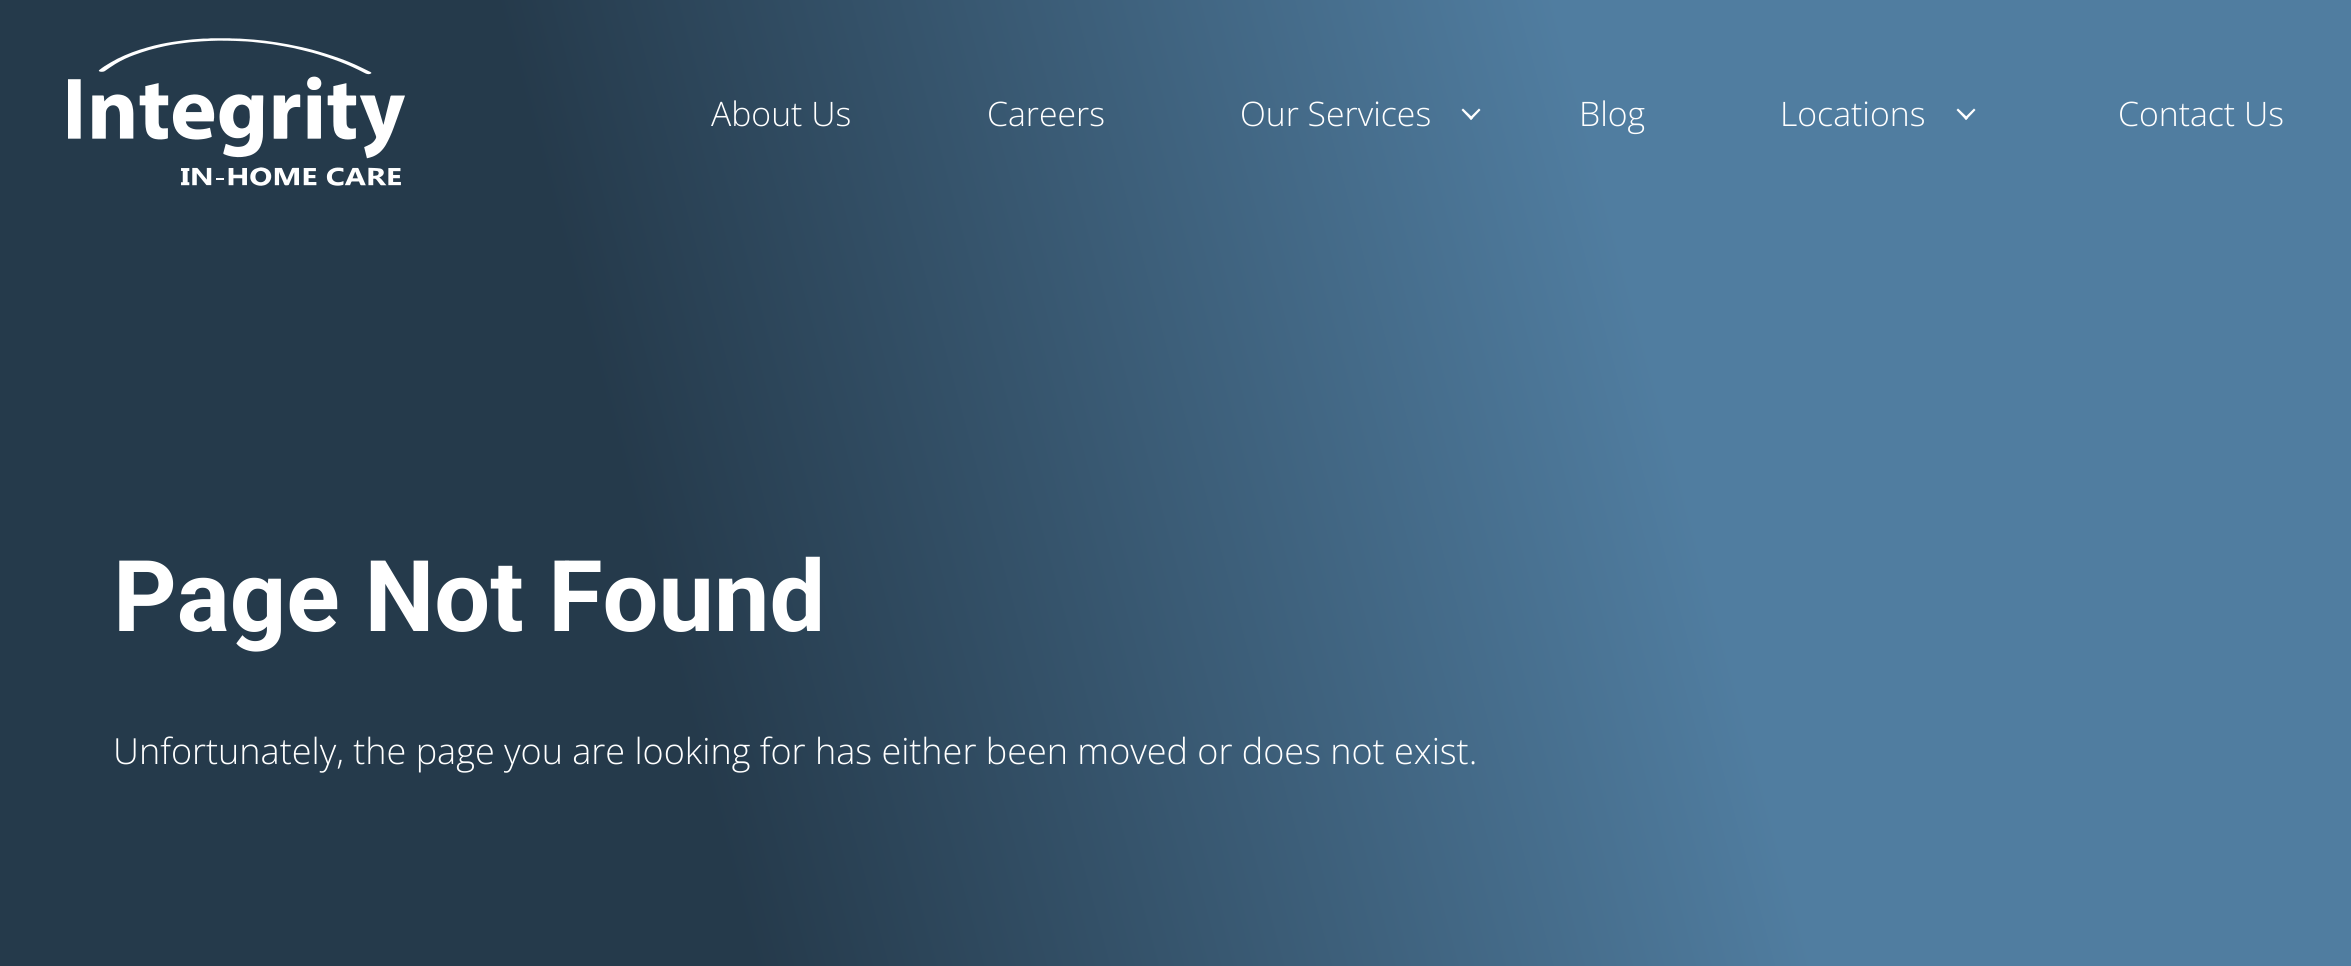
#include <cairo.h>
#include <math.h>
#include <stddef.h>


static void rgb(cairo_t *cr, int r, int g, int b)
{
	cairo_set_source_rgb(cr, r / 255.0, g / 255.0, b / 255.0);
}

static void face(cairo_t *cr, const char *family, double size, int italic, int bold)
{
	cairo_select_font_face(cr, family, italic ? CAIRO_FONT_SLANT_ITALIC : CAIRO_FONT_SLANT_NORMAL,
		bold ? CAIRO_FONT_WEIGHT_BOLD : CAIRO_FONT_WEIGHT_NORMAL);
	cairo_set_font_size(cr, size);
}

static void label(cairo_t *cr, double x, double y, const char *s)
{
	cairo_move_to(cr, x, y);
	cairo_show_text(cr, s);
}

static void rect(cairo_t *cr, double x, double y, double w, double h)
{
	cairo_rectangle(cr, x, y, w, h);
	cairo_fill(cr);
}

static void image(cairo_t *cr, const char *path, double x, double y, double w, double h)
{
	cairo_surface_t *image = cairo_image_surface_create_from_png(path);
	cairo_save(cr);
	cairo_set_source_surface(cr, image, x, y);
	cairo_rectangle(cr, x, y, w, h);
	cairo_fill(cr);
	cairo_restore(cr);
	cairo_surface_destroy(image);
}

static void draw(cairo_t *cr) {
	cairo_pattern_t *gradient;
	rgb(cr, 255, 255, 255);
	cairo_paint(cr);
	gradient = cairo_pattern_create_linear(-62, 894, 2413, 231);
	cairo_pattern_add_color_stop_rgba(gradient, 0.3, 0.145, 0.227, 0.294, 1);
	cairo_pattern_add_color_stop_rgba(gradient, 0.7, 0.314, 0.49, 0.627, 1);
	cairo_set_source(cr, gradient);
	cairo_pattern_destroy(gradient);
	rect(cr, 0, 0, 2351, 966);
	image(cr, "image0.png", 68, 38, 337, 148);
	face(cr, "Open Sans Light", 33.75, 0, 0);
	rgb(cr, 255, 255, 255);
	label(cr, 711, 126, "About Us");
	label(cr, 987, 126, "Careers");
	label(cr, 1240, 126, "Our Services");
	cairo_new_path(cr);
	cairo_move_to(cr, 1480.5, 110);
	cairo_line_to(cr, 1471, 120);
	cairo_line_to(cr, 1469.5, 118);
	cairo_line_to(cr, 1479, 108.5);
	cairo_close_path(cr);
	cairo_fill(cr);
	cairo_new_path(cr);
	cairo_move_to(cr, 1473, 118);
	cairo_line_to(cr, 1471, 120);
	cairo_line_to(cr, 1461.5, 110);
	cairo_line_to(cr, 1463, 108.5);
	cairo_close_path(cr);
	cairo_fill(cr);
	label(cr, 1579, 126, "Blog");
	label(cr, 1780, 126, "Locations");
	cairo_new_path(cr);
	cairo_move_to(cr, 1975.5, 110);
	cairo_line_to(cr, 1966, 120);
	cairo_line_to(cr, 1964.5, 118);
	cairo_line_to(cr, 1974, 108.5);
	cairo_close_path(cr);
	cairo_fill(cr);
	cairo_new_path(cr);
	cairo_move_to(cr, 1968, 118);
	cairo_line_to(cr, 1966, 120);
	cairo_line_to(cr, 1956.5, 110);
	cairo_line_to(cr, 1958, 108.5);
	cairo_close_path(cr);
	cairo_fill(cr);
	label(cr, 2118, 126, "Contact Us");
	face(cr, "Roboto", 99, 0, 1);
	label(cr, 113, 631, "Page Not Found");
	face(cr, "Open Sans Light", 36, 0, 0);
	label(cr, 113, 764, "Unfortunately, the page you are looking for has either been moved or does not exist.");
}

int main(void) {
	cairo_surface_t *surface = cairo_image_surface_create(CAIRO_FORMAT_RGB24, 2351, 966);
	cairo_t *cr = cairo_create(surface);
	cairo_font_options_t *options = cairo_font_options_create();
	cairo_font_options_set_hint_metrics(options, CAIRO_HINT_METRICS_OFF);
	cairo_font_options_set_hint_style(options, CAIRO_HINT_STYLE_NONE);
	cairo_set_font_options(cr, options);
	cairo_set_miter_limit(cr, 4);
	draw(cr);
	cairo_surface_write_to_png(surface, "render.png");
	cairo_font_options_destroy(options);
	cairo_destroy(cr);
	cairo_surface_destroy(surface);
	return 0;
}
